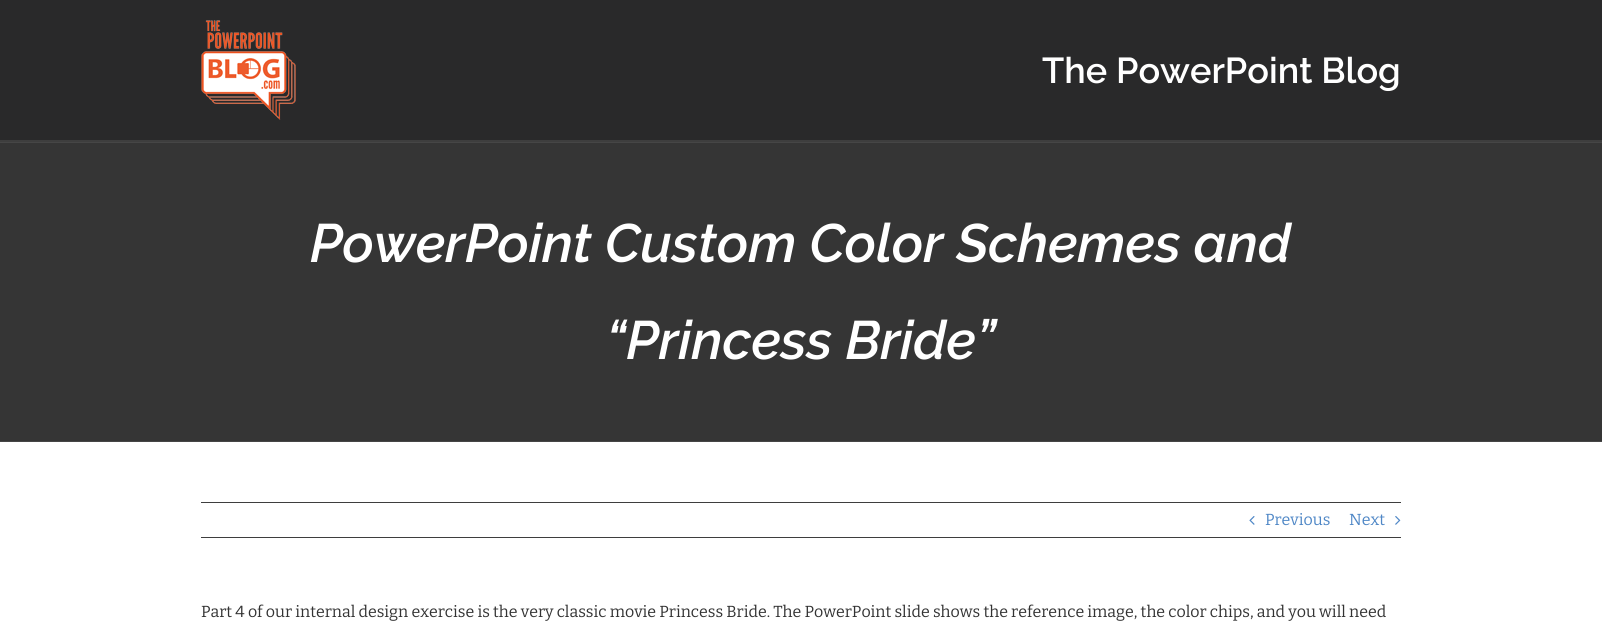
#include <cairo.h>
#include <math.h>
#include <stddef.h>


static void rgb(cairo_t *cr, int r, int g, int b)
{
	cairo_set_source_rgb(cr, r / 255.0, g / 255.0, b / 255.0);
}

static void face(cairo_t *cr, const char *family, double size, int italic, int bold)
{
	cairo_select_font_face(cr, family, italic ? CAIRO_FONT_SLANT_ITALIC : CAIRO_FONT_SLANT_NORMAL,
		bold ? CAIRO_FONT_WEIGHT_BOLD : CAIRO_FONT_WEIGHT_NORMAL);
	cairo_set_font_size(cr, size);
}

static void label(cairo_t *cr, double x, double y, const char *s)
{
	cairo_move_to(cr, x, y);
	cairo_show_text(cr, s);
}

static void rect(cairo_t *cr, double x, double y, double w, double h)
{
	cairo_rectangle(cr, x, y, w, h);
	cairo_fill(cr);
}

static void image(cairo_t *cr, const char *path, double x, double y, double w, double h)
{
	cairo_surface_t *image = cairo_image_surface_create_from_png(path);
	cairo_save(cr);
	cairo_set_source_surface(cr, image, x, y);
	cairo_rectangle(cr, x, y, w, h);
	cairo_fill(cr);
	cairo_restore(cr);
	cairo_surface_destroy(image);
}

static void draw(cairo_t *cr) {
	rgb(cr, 255, 255, 255);
	cairo_paint(cr);
	rgb(cr, 41, 41, 42);
	rect(cr, 0, 0, 1602, 140);
	image(cr, "image0.png", 201, 20, 95, 100);
	face(cr, "Raleway SemiBold", 36, 0, 0);
	rgb(cr, 255, 255, 255);
	label(cr, 1042, 83, "The PowerPoint Blog");
	rgb(cr, 62, 62, 62);
	rect(cr, 0, 140, 1602, 2);
	rgb(cr, 53, 53, 53);
	rect(cr, 0, 143, 1602, 298);
	rgb(cr, 70, 70, 70);
	rect(cr, 0, 142, 1602, 1);
	rect(cr, 0, 441, 1602, 1);
	face(cr, "Raleway SemiBold", 54, 1, 0);
	rgb(cr, 255, 255, 255);
	label(cr, 310, 262, "PowerPoint Custom Color Schemes and");
	label(cr, 606, 359, "“Princess Bride”");
	rgb(cr, 62, 62, 62);
	rect(cr, 201, 502, 1200, 1);
	rect(cr, 201, 537, 1200, 1);
	image(cr, "image1.png", 1249, 516, 6, 9);
	face(cr, "Bitter", 16, 0, 0);
	rgb(cr, 79, 135, 198);
	label(cr, 1265, 525, "Previous");
	label(cr, 1349, 525, "Next");
	image(cr, "image2.png", 1395, 516, 6, 9);
	rgb(cr, 51, 51, 51);
	label(cr, 201, 617, "Part 4 of our internal design exercise is the very classic movie Princess Bride. The PowerPoint slide shows the reference image, the color chips, and you will need");
}

int main(void) {
	cairo_surface_t *surface = cairo_image_surface_create(CAIRO_FORMAT_RGB24, 1602, 629);
	cairo_t *cr = cairo_create(surface);
	cairo_font_options_t *options = cairo_font_options_create();
	cairo_font_options_set_hint_metrics(options, CAIRO_HINT_METRICS_OFF);
	cairo_font_options_set_hint_style(options, CAIRO_HINT_STYLE_NONE);
	cairo_set_font_options(cr, options);
	cairo_set_miter_limit(cr, 4);
	draw(cr);
	cairo_surface_write_to_png(surface, "render.png");
	cairo_font_options_destroy(options);
	cairo_destroy(cr);
	cairo_surface_destroy(surface);
	return 0;
}
